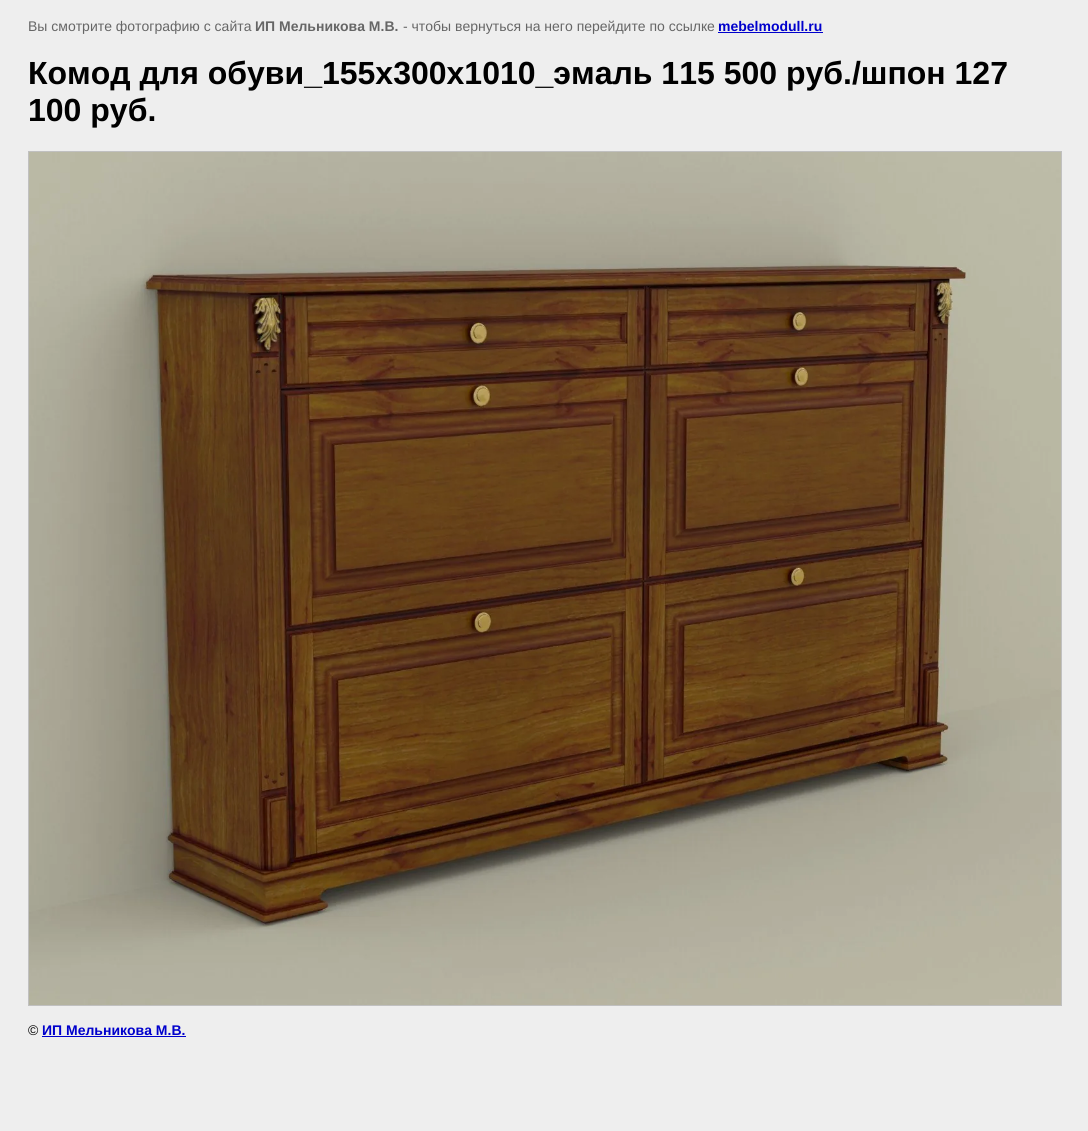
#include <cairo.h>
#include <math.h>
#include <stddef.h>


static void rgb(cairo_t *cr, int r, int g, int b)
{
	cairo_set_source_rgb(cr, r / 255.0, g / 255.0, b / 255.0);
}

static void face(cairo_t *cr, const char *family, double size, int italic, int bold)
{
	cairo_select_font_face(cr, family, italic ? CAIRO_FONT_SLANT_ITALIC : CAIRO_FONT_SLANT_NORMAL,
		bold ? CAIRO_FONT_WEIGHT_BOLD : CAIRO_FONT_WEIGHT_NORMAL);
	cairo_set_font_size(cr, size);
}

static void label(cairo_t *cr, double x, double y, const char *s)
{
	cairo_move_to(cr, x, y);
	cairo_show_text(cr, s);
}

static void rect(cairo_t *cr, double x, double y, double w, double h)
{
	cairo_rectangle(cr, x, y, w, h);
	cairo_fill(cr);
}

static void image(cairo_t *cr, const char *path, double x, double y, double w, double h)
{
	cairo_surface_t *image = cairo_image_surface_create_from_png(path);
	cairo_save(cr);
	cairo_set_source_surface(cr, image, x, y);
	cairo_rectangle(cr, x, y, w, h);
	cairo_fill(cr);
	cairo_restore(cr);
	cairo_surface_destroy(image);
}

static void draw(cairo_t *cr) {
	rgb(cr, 238, 238, 238);
	cairo_paint(cr);
	face(cr, "Liberation Sans", 14, 0, 0);
	rgb(cr, 102, 102, 102);
	label(cr, 28, 31, "Вы смотрите фотографию с сайта");
	face(cr, "Liberation Sans", 14, 0, 1);
	label(cr, 255, 31, "ИП Мельникова М.В.");
	face(cr, "Liberation Sans", 14, 0, 0);
	label(cr, 403, 31, "- чтобы вернуться на него перейдите по ссылке");
	face(cr, "Liberation Sans", 14, 0, 1);
	rgb(cr, 0, 0, 204);
	label(cr, 718, 31, "mebelmodull.ru");
	rect(cr, 718, 32, 105, 1);
	face(cr, "Liberation Sans", 32, 0, 1);
	rgb(cr, 0, 0, 0);
	label(cr, 28, 84, "Комод для обуви_155х300х1010_эмаль 115 500 руб./шпон 127");
	label(cr, 28, 121, "100 руб.");
	cairo_rectangle(cr, 28.5, 151.5, 1033, 854);
	rgb(cr, 192, 192, 192);
	cairo_set_line_width(cr, 1);
	cairo_stroke(cr);
	image(cr, "image0.png", 29, 152, 1032, 853);
	face(cr, "Liberation Sans", 14, 0, 0);
	rgb(cr, 0, 0, 0);
	label(cr, 28, 1035, "©");
	face(cr, "Liberation Sans", 14, 0, 1);
	rgb(cr, 0, 0, 204);
	label(cr, 42, 1035, "ИП Мельникова М.В.");
	rect(cr, 42, 1036, 144, 1);
}

int main(void) {
	cairo_surface_t *surface = cairo_image_surface_create(CAIRO_FORMAT_RGB24, 1088, 1131);
	cairo_t *cr = cairo_create(surface);
	cairo_font_options_t *options = cairo_font_options_create();
	cairo_font_options_set_hint_metrics(options, CAIRO_HINT_METRICS_OFF);
	cairo_font_options_set_hint_style(options, CAIRO_HINT_STYLE_NONE);
	cairo_set_font_options(cr, options);
	cairo_set_miter_limit(cr, 4);
	draw(cr);
	cairo_surface_write_to_png(surface, "render.png");
	cairo_font_options_destroy(options);
	cairo_destroy(cr);
	cairo_surface_destroy(surface);
	return 0;
}
